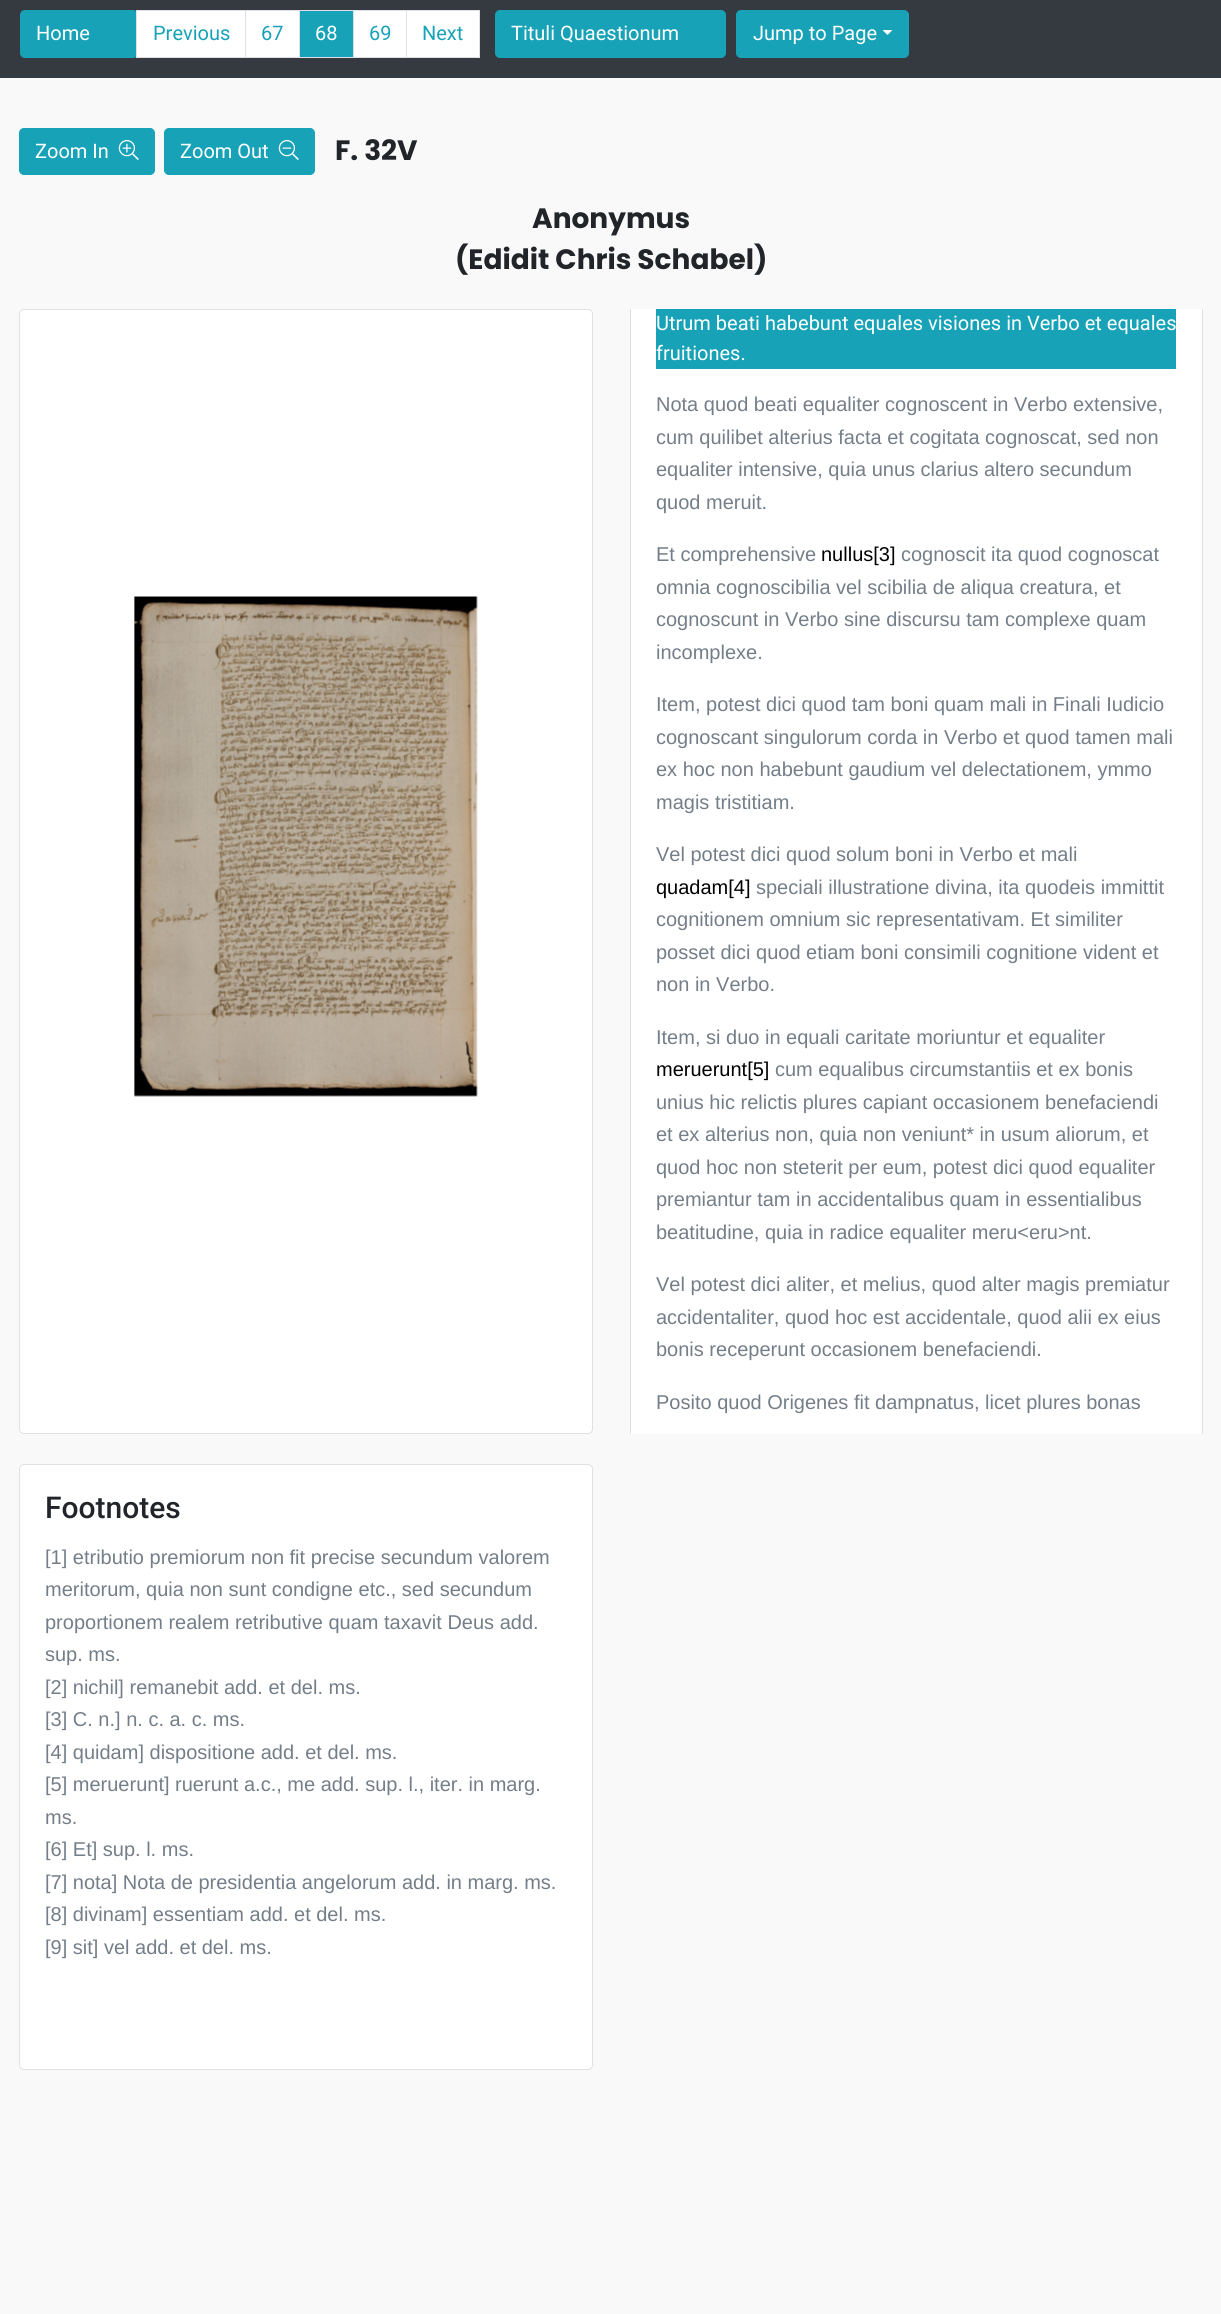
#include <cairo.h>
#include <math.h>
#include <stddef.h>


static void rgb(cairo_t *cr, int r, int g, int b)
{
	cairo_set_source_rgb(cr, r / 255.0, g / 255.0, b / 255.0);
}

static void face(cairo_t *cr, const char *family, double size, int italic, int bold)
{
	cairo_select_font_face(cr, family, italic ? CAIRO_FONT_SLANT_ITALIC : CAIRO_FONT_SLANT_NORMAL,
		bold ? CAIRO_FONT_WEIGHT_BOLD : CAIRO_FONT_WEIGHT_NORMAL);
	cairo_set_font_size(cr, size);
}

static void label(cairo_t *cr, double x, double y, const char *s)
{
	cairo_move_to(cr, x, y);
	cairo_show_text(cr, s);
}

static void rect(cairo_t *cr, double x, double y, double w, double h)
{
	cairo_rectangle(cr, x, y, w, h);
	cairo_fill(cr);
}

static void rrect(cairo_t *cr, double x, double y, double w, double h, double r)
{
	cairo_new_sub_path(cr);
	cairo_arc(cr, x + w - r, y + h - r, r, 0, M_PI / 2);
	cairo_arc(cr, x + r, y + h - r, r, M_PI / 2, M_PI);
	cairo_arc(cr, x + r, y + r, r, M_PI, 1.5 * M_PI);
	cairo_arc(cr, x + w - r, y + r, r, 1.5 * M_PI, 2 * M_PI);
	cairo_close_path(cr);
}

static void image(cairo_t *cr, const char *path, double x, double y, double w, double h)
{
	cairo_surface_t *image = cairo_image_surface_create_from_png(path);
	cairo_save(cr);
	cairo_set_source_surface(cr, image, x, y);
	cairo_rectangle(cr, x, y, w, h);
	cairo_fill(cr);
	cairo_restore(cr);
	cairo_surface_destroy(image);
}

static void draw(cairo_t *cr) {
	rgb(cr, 249, 249, 249);
	cairo_paint(cr);
	rgb(cr, 52, 58, 64);
	rect(cr, 0, 0, 1221, 78);
	rgb(cr, 23, 162, 184);
	rrect(cr, 20.5, 10.5, 117, 47, 4.5);
	cairo_fill_preserve(cr);
	cairo_set_line_width(cr, 1);
	cairo_stroke(cr);
	face(cr, "Roboto", 20, 0, 0);
	rgb(cr, 255, 255, 255);
	label(cr, 36, 40, "Home");
	cairo_rectangle(cr, 136.5, 10.5, 109, 47);
	cairo_fill_preserve(cr);
	rgb(cr, 222, 226, 230);
	cairo_stroke(cr);
	rgb(cr, 23, 162, 184);
	label(cr, 153, 40, "Previous");
	rgb(cr, 255, 255, 255);
	cairo_rectangle(cr, 245.5, 10.5, 54, 47);
	cairo_fill_preserve(cr);
	rgb(cr, 222, 226, 230);
	cairo_stroke(cr);
	rgb(cr, 23, 162, 184);
	label(cr, 261, 40, "67");
	cairo_rectangle(cr, 299.5, 10.5, 54, 47);
	cairo_fill_preserve(cr);
	rgb(cr, 222, 226, 230);
	cairo_stroke(cr);
	rgb(cr, 255, 255, 255);
	label(cr, 315, 40, "68");
	rect(cr, 354, 11, 52, 46);
	cairo_rectangle(cr, 353.5, 10.5, 54, 47);
	rgb(cr, 222, 226, 230);
	cairo_stroke(cr);
	rgb(cr, 23, 162, 184);
	label(cr, 369, 40, "69");
	rgb(cr, 255, 255, 255);
	cairo_rectangle(cr, 406.5, 10.5, 73, 47);
	cairo_fill_preserve(cr);
	rgb(cr, 222, 226, 230);
	cairo_stroke(cr);
	rgb(cr, 23, 162, 184);
	label(cr, 422, 40, "Next");
	rrect(cr, 495.5, 10.5, 230, 47, 4.5);
	cairo_fill_preserve(cr);
	cairo_stroke(cr);
	rgb(cr, 255, 255, 255);
	label(cr, 511, 40, "Tituli Quaestionum");
	rgb(cr, 23, 162, 184);
	rrect(cr, 736.5, 10.5, 172, 47, 4.5);
	cairo_fill_preserve(cr);
	cairo_stroke(cr);
	rgb(cr, 255, 255, 255);
	label(cr, 753, 40, "Jump to Page");
	cairo_new_path(cr);
	cairo_move_to(cr, 882.5, 30);
	cairo_line_to(cr, 892.5, 30);
	cairo_line_to(cr, 887.5, 35);
	cairo_close_path(cr);
	cairo_fill(cr);
	rgb(cr, 23, 162, 184);
	rrect(cr, 19.5, 128.5, 135, 46, 4.5);
	cairo_fill_preserve(cr);
	cairo_stroke(cr);
	rgb(cr, 255, 255, 255);
	label(cr, 35, 158, "Zoom In");
	image(cr, "image0.png", 118, 140, 21, 20);
	rgb(cr, 23, 162, 184);
	rrect(cr, 164.5, 128.5, 150, 46, 4.5);
	cairo_fill_preserve(cr);
	cairo_stroke(cr);
	rgb(cr, 255, 255, 255);
	label(cr, 180, 158, "Zoom Out");
	image(cr, "image1.png", 278, 140, 21, 20);
	face(cr, "Poppins", 28, 0, 1);
	rgb(cr, 33, 37, 41);
	label(cr, 335, 160, "F. 32V");
	label(cr, 532, 228, "Anonymus");
	label(cr, 455, 269, "(Edidit Chris Schabel)");
	rgb(cr, 255, 255, 255);
	rrect(cr, 19, 309, 574, 1125, 5);
	cairo_fill(cr);
	rrect(cr, 19.5, 309.5, 573, 1124, 4.5);
	cairo_set_source_rgba(cr, 0, 0, 0, 0.12);
	cairo_stroke(cr);
	image(cr, "image2.png", 134, 596, 344, 501);
	rgb(cr, 255, 255, 255);
	rect(cr, 631, 309, 571, 1125);
	cairo_save(cr);
	cairo_rectangle(cr, 630, 309, 573, 1125);
	cairo_clip(cr);
	rrect(cr, 630.5, -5.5, 572, 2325, 4.5);
	rgb(cr, 223, 223, 223);
	cairo_stroke(cr);
	cairo_restore(cr);
	rgb(cr, 23, 162, 184);
	rect(cr, 656, 309, 520, 60);
	face(cr, "Roboto", 20, 0, 0);
	rgb(cr, 255, 255, 255);
	label(cr, 656, 330, "Utrum beati habebunt equales visiones in Verbo et equales");
	label(cr, 656, 360, "fruitiones.");
	face(cr, "Liberation Sans", 20, 0, 0);
	rgb(cr, 116, 126, 136);
	label(cr, 656, 411, "Nota quod beati equaliter cognoscent in Verbo extensive,");
	label(cr, 656, 444, "cum quilibet alterius facta et cogitata cognoscat, sed non");
	label(cr, 656, 476, "equaliter intensive, quia unus clarius altero secundum");
	label(cr, 656, 509, "quod meruit.");
	label(cr, 656, 561, "Et comprehensive");
	rgb(cr, 0, 0, 0);
	label(cr, 821, 561, "nullus[3]");
	rgb(cr, 116, 126, 136);
	label(cr, 901, 561, "cognoscit ita quod cognoscat");
	label(cr, 656, 594, "omnia cognoscibilia vel scibilia de aliqua creatura, et");
	label(cr, 656, 626, "cognoscunt in Verbo sine discursu tam complexe quam");
	label(cr, 656, 659, "incomplexe.");
	label(cr, 656, 711, "Item, potest dici quod tam boni quam mali in Finali Iudicio");
	label(cr, 656, 744, "cognoscant singulorum corda in Verbo et quod tamen mali");
	label(cr, 656, 776, "ex hoc non habebunt gaudium vel delectationem, ymmo");
	label(cr, 656, 809, "magis tristitiam.");
	label(cr, 656, 861, "Vel potest dici quod solum boni in Verbo et mali");
	rgb(cr, 0, 0, 0);
	label(cr, 656, 894, "quadam[4]");
	rgb(cr, 116, 126, 136);
	label(cr, 756, 894, "speciali illustratione divina, ita quodeis immittit");
	label(cr, 656, 926, "cognitionem omnium sic representativam. Et similiter");
	label(cr, 656, 959, "posset dici quod etiam boni consimili cognitione vident et");
	label(cr, 656, 991, "non in Verbo.");
	label(cr, 656, 1044, "Item, si duo in equali caritate moriuntur et equaliter");
	rgb(cr, 0, 0, 0);
	label(cr, 656, 1076, "meruerunt[5]");
	rgb(cr, 116, 126, 136);
	label(cr, 775, 1076, "cum equalibus circumstantiis et ex bonis");
	label(cr, 656, 1109, "unius hic relictis plures capiant occasionem benefaciendi");
	label(cr, 656, 1141, "et ex alterius non, quia non veniunt* in usum aliorum, et");
	label(cr, 656, 1174, "quod hoc non steterit per eum, potest dici quod equaliter");
	label(cr, 656, 1206, "premiantur tam in accidentalibus quam in essentialibus");
	label(cr, 656, 1239, "beatitudine, quia in radice equaliter meru<eru>nt.");
	label(cr, 656, 1291, "Vel potest dici aliter, et melius, quod alter magis premiatur");
	label(cr, 656, 1324, "accidentaliter, quod hoc est accidentale, quod alii ex eius");
	label(cr, 656, 1356, "bonis receperunt occasionem benefaciendi.");
	label(cr, 656, 1409, "Posito quod Origenes fit dampnatus, licet plures bonas");
	rgb(cr, 255, 255, 255);
	rrect(cr, 19, 1464, 574, 606, 5);
	cairo_fill(cr);
	rrect(cr, 19.5, 1464.5, 573, 605, 4.5);
	cairo_set_source_rgba(cr, 0, 0, 0, 0.12);
	cairo_stroke(cr);
	face(cr, "Roboto Medium", 30, 0, 0);
	rgb(cr, 33, 37, 41);
	label(cr, 45, 1518, "Footnotes");
	face(cr, "Liberation Sans", 20, 0, 0);
	rgb(cr, 116, 126, 136);
	label(cr, 45, 1564, "[1] etributio premiorum non fit precise secundum valorem");
	label(cr, 45, 1596, "meritorum, quia non sunt condigne etc., sed secundum");
	label(cr, 45, 1629, "proportionem realem retributive quam taxavit Deus add.");
	label(cr, 45, 1661, "sup. ms.");
	label(cr, 45, 1694, "[2] nichil] remanebit add. et del. ms.");
	label(cr, 45, 1726, "[3] C. n.] n. c. a. c. ms.");
	label(cr, 45, 1759, "[4] quidam] dispositione add. et del. ms.");
	label(cr, 45, 1791, "[5] meruerunt] ruerunt a.c., me add. sup. l., iter. in marg.");
	label(cr, 45, 1824, "ms.");
	label(cr, 45, 1856, "[6] Et] sup. l. ms.");
	label(cr, 45, 1889, "[7] nota] Nota de presidentia angelorum add. in marg. ms.");
	label(cr, 45, 1921, "[8] divinam] essentiam add. et del. ms.");
	label(cr, 45, 1954, "[9] sit] vel add. et del. ms.");
}

int main(void) {
	cairo_surface_t *surface = cairo_image_surface_create(CAIRO_FORMAT_RGB24, 1221, 2314);
	cairo_t *cr = cairo_create(surface);
	cairo_font_options_t *options = cairo_font_options_create();
	cairo_font_options_set_hint_metrics(options, CAIRO_HINT_METRICS_OFF);
	cairo_font_options_set_hint_style(options, CAIRO_HINT_STYLE_NONE);
	cairo_set_font_options(cr, options);
	cairo_set_miter_limit(cr, 4);
	draw(cr);
	cairo_surface_write_to_png(surface, "render.png");
	cairo_font_options_destroy(options);
	cairo_destroy(cr);
	cairo_surface_destroy(surface);
	return 0;
}
